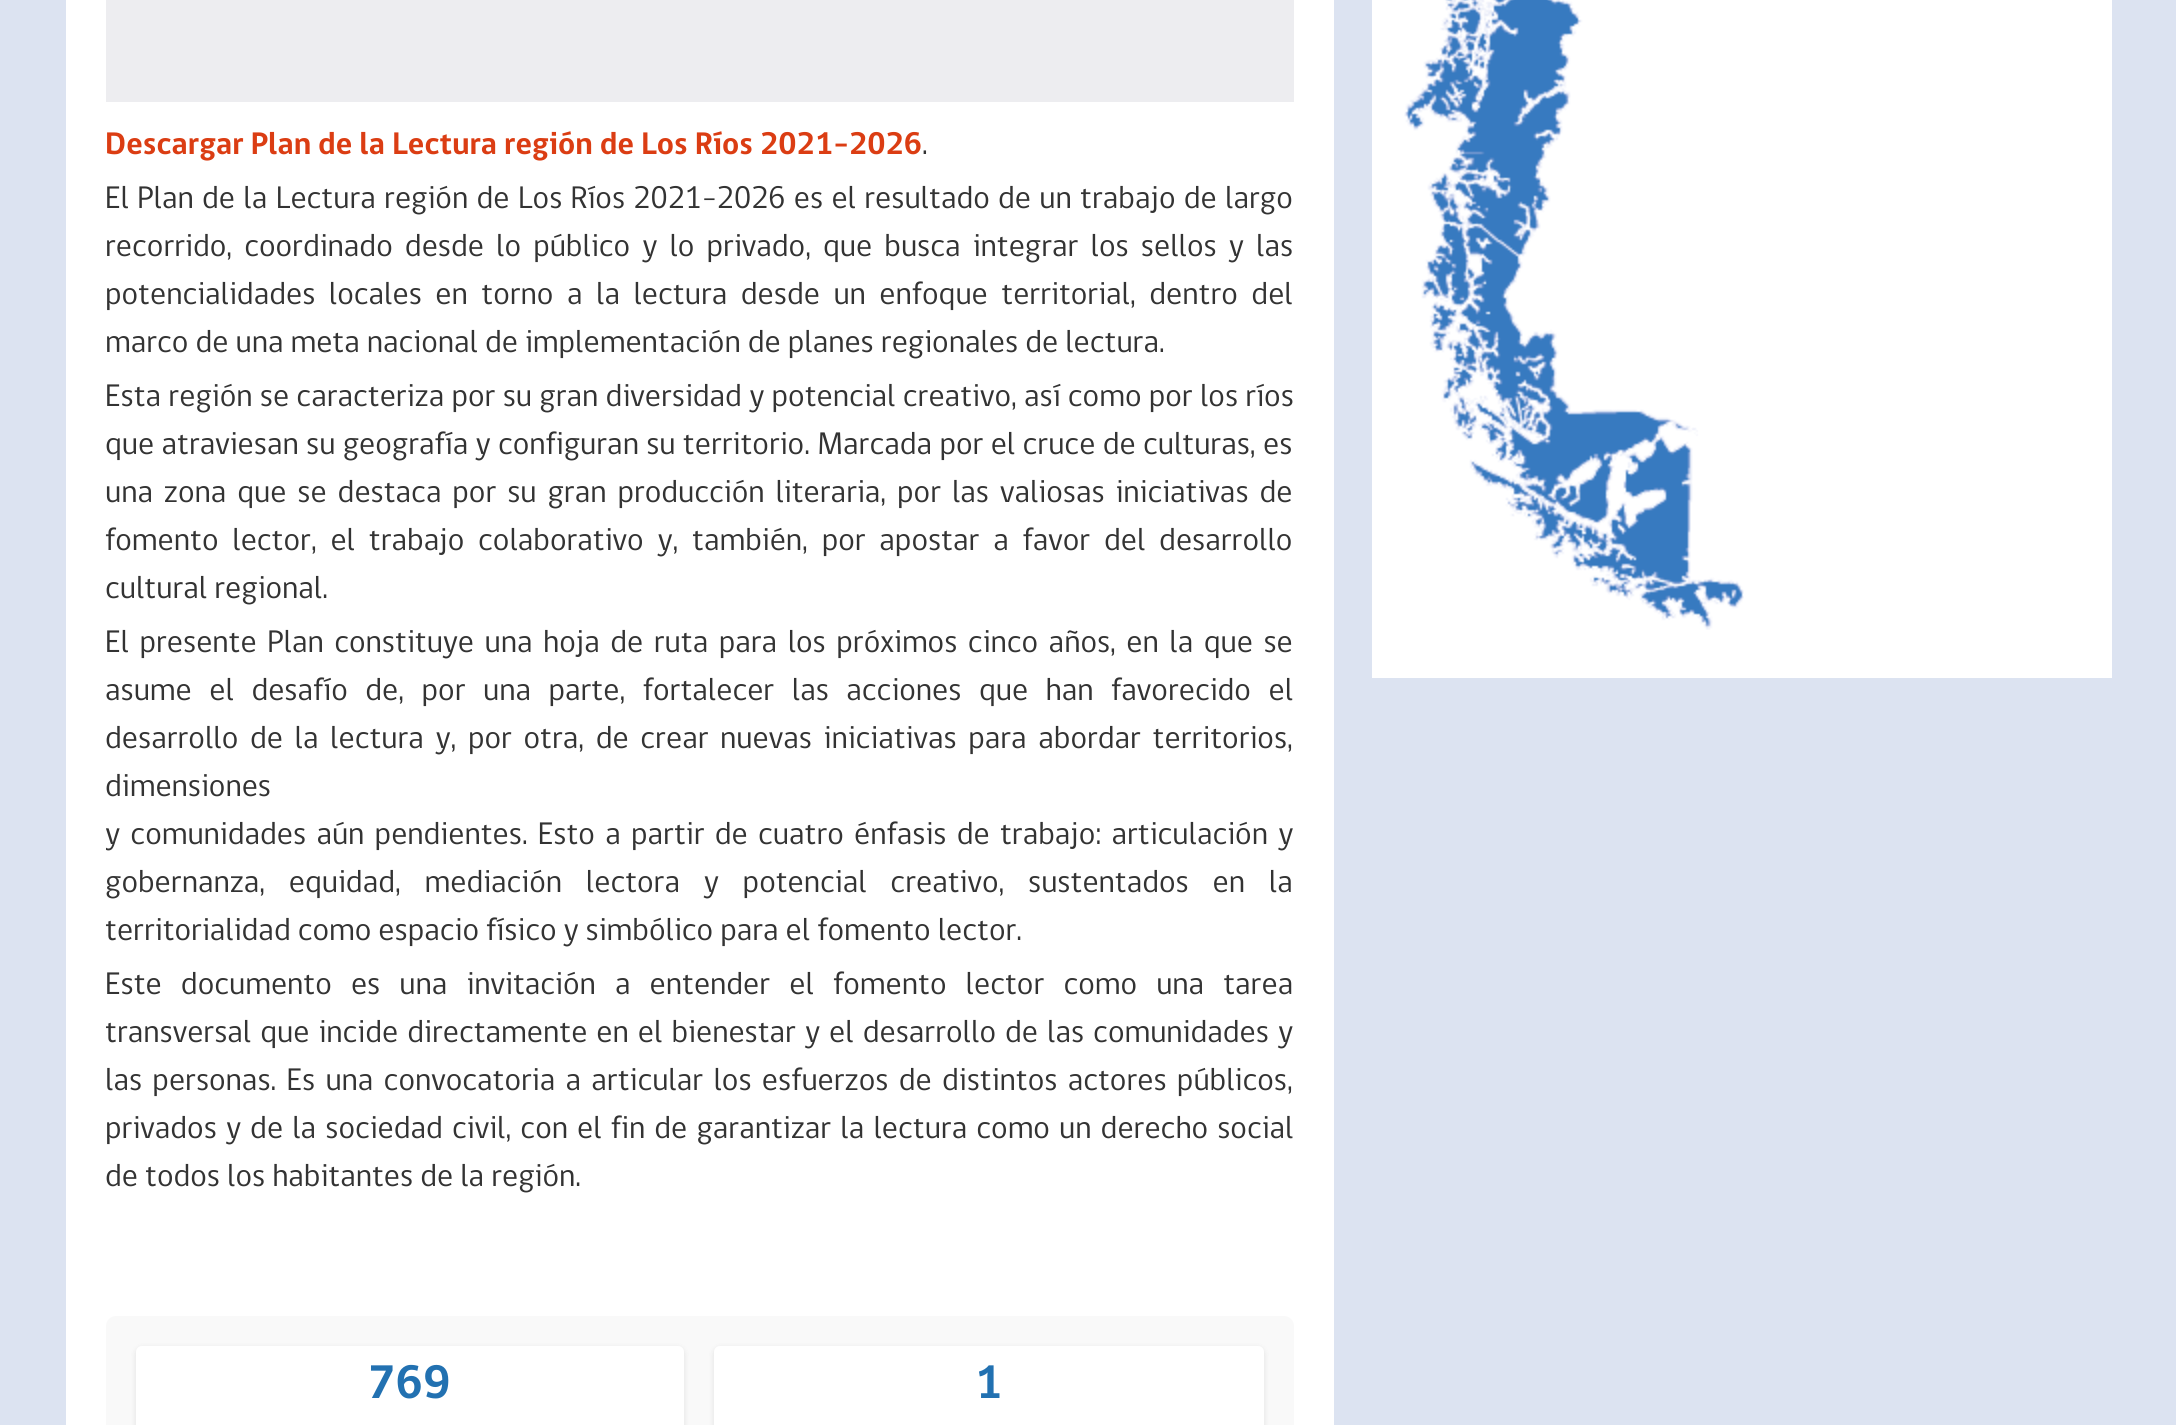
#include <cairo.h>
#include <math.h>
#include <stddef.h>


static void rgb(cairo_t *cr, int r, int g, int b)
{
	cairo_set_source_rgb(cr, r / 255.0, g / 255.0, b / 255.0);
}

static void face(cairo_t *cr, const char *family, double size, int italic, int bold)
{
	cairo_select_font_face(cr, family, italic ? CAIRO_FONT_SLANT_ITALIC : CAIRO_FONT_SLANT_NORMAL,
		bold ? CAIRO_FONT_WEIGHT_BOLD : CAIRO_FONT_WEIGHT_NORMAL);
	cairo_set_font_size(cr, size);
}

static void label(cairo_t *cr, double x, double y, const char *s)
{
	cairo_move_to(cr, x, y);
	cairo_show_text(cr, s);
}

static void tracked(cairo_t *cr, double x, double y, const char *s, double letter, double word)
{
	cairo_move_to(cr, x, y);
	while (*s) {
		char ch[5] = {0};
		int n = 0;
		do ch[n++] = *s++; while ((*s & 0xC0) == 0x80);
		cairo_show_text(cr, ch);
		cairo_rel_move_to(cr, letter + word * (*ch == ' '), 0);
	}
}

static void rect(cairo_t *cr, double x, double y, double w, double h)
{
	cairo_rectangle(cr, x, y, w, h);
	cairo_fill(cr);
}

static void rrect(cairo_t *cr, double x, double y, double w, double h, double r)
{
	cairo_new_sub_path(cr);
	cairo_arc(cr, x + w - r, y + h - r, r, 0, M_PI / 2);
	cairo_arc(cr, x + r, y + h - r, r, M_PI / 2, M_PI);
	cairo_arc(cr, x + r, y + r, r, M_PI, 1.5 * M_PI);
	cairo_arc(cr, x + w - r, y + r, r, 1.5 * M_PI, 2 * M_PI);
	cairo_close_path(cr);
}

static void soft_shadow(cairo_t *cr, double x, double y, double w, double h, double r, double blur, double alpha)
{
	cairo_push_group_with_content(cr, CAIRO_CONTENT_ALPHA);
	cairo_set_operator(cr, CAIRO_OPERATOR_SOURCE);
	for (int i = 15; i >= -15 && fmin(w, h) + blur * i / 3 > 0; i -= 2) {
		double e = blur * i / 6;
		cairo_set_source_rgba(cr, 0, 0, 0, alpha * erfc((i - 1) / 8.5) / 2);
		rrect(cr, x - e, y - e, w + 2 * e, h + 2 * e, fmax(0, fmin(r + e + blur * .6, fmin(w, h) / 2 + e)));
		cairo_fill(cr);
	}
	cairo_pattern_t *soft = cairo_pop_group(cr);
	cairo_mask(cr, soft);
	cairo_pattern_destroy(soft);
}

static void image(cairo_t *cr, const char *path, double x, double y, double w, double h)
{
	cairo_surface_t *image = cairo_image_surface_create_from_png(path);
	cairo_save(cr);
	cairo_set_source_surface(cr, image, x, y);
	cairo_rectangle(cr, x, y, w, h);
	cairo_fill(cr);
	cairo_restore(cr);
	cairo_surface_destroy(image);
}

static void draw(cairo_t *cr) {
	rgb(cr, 220, 227, 241);
	cairo_paint(cr);
	rgb(cr, 255, 255, 255);
	rect(cr, 66, 0, 1268, 1425);
	rgb(cr, 237, 237, 240);
	rect(cr, 106, 0, 1188, 102);
	face(cr, "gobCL", 32, 0, 1);
	rgb(cr, 219, 61, 19);
	label(cr, 105, 154, "Descargar Plan de la Lectura región de Los Ríos 2021–2026");
	face(cr, "gobCL", 32, 0, 0);
	rgb(cr, 51, 51, 51);
	label(cr, 922, 154, ".");
	tracked(cr, 105, 208, "El Plan de la Lectura región de Los Ríos 2021-2026 es el resultado de un trabajo de largo", 0, 1.25);
	tracked(cr, 105, 256, "recorrido, coordinado desde lo público y lo privado, que busca integrar los sellos y las", 0, 5.1);
	tracked(cr, 105, 304, "potencialidades locales en torno a la lectura desde un enfoque territorial, dentro del", 0, 6.5);
	label(cr, 105, 352, "marco de una meta nacional de implementación de planes regionales de lectura.");
	tracked(cr, 105, 406, "Esta región se caracteriza por su gran diversidad y potencial creativo, así como por los ríos", 0, 0.25);
	tracked(cr, 105, 454, "que atraviesan su geografía y configuran su territorio. Marcada por el cruce de culturas, es", 0, 0.3);
	tracked(cr, 105, 502, "una zona que se destaca por su gran producción literaria, por las valiosas iniciativas de", 0, 3.9);
	tracked(cr, 105, 550, "fomento lector, el trabajo colaborativo y, también, por apostar a favor del desarrollo", 0, 6.75);
	label(cr, 105, 598, "cultural regional.");
	tracked(cr, 105, 652, "El presente Plan constituye una hoja de ruta para los próximos cinco años, en la que se", 0, 3.5);
	tracked(cr, 105, 700, "asume el desafío de, por una parte, fortalecer las acciones que han favorecido el", 0, 10.5);
	tracked(cr, 105, 748, "desarrollo de la lectura y, por otra, de crear nuevas iniciativas para abordar territorios,", 0, 4.6);
	label(cr, 105, 796, "dimensiones");
	cairo_save(cr);
	cairo_rectangle(cr, 106, 620, 1188, 336);
	cairo_clip(cr);
	tracked(cr, 105, 844, "y comunidades aún pendientes. Esto a partir de cuatro énfasis de trabajo: articulación y", 0, 3.25);
	cairo_restore(cr);
	tracked(cr, 105, 892, "gobernanza, equidad, mediación lectora y potencial creativo, sustentados en la", 0, 16.75);
	label(cr, 105, 940, "territorialidad como espacio físico y simbólico para el fomento lector.");
	tracked(cr, 105, 994, "Este documento es una invitación a entender el fomento lector como una tarea", 0, 12.1);
	tracked(cr, 105, 1042, "transversal que incide directamente en el bienestar y el desarrollo de las comunidades y", 0, 2);
	tracked(cr, 105, 1090, "las personas. Es una convocatoria a articular los esfuerzos de distintos actores públicos,", 0, 3.25);
	tracked(cr, 105, 1138, "privados y de la sociedad civil, con el fin de garantizar la lectura como un derecho social", 0, 2.1);
	label(cr, 105, 1186, "de todos los habitantes de la región.");
	rgb(cr, 249, 249, 249);
	rrect(cr, 106, 1316, 1188, 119, 10);
	cairo_fill(cr);
	rgb(cr, 0, 0, 0);
	soft_shadow(cr, 136, 1348, 548, 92, 6, 3, 0.1);
	rgb(cr, 255, 255, 255);
	rrect(cr, 136, 1346, 548, 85, 6);
	cairo_fill(cr);
	face(cr, "gobCL", 48, 0, 1);
	rgb(cr, 34, 113, 177);
	label(cr, 368, 1398, "769");
	rgb(cr, 0, 0, 0);
	soft_shadow(cr, 714, 1348, 550, 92, 6, 3, 0.1);
	rgb(cr, 255, 255, 255);
	rrect(cr, 714, 1346, 550, 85, 6);
	cairo_fill(cr);
	rgb(cr, 34, 113, 177);
	label(cr, 975, 1398, "1");
	rgb(cr, 255, 255, 255);
	rect(cr, 1372, 0, 740, 678);
	image(cr, "image0.png", 1404, 0, 340, 630);
}

int main(void) {
	cairo_surface_t *surface = cairo_image_surface_create(CAIRO_FORMAT_RGB24, 2176, 1425);
	cairo_t *cr = cairo_create(surface);
	cairo_font_options_t *options = cairo_font_options_create();
	cairo_font_options_set_hint_metrics(options, CAIRO_HINT_METRICS_OFF);
	cairo_font_options_set_hint_style(options, CAIRO_HINT_STYLE_NONE);
	cairo_set_font_options(cr, options);
	cairo_set_miter_limit(cr, 4);
	draw(cr);
	cairo_surface_write_to_png(surface, "render.png");
	cairo_font_options_destroy(options);
	cairo_destroy(cr);
	cairo_surface_destroy(surface);
	return 0;
}
